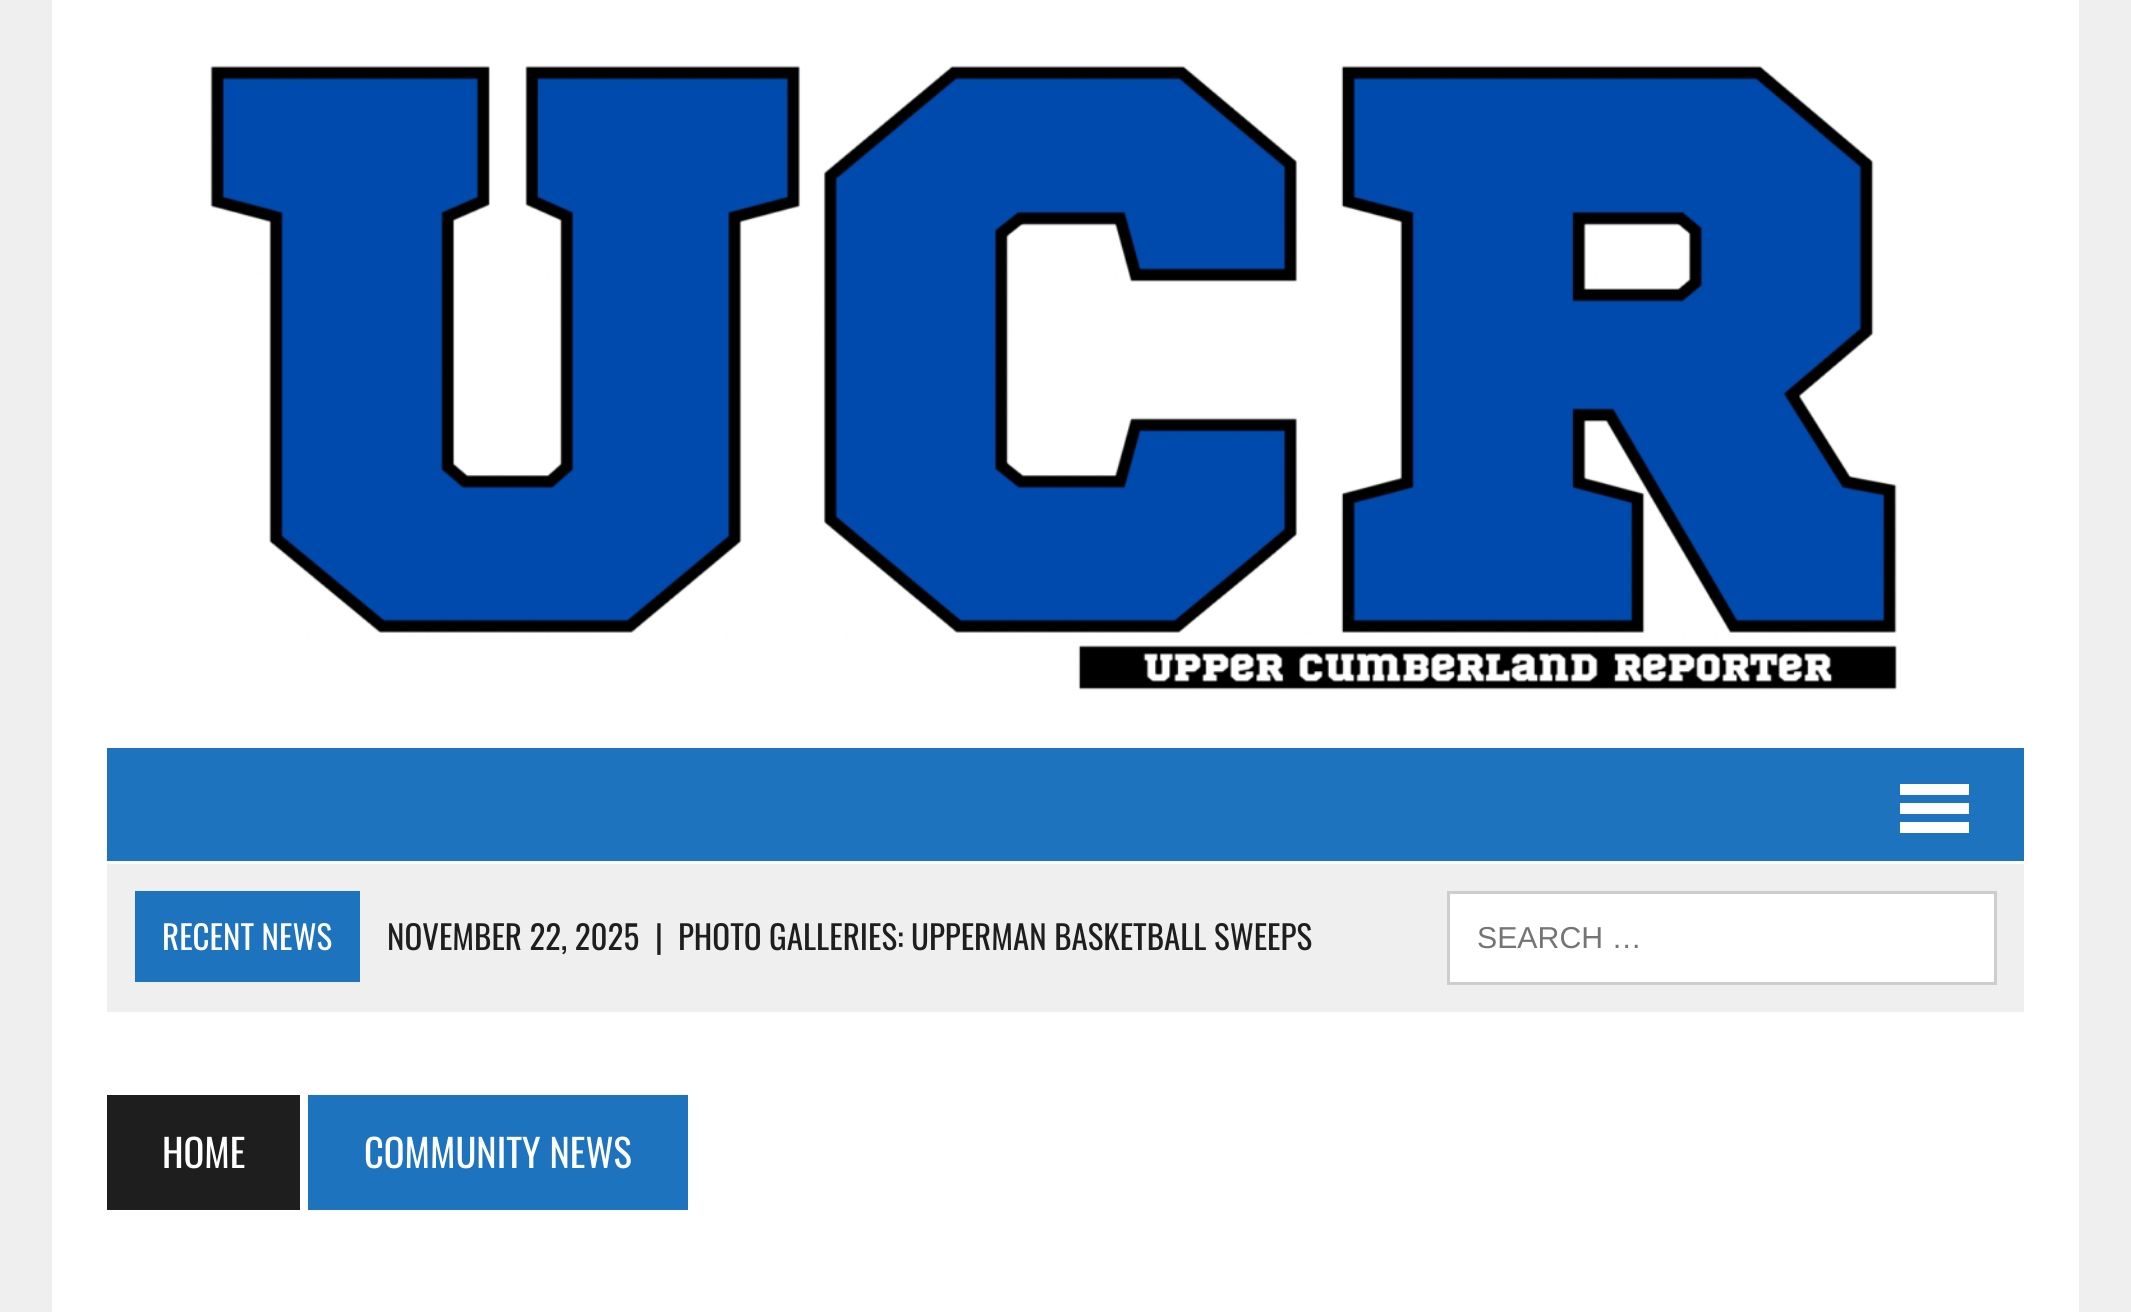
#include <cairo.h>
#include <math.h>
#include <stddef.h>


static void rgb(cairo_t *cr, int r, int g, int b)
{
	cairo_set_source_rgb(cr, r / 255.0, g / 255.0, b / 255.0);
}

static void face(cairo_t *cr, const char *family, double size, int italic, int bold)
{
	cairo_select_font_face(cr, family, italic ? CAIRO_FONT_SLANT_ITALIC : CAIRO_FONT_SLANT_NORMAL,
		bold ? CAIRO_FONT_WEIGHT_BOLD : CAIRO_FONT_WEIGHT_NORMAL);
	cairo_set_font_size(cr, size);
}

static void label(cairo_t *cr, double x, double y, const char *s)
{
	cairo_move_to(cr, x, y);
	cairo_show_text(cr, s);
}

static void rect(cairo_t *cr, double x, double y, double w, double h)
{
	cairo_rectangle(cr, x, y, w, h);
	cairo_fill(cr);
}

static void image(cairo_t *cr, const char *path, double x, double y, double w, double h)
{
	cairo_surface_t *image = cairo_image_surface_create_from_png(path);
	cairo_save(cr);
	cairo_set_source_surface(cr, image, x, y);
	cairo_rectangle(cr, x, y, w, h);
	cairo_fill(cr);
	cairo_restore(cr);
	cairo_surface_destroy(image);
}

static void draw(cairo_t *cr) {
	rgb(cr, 239, 239, 239);
	cairo_paint(cr);
	rgb(cr, 255, 255, 255);
	rect(cr, 52, 0, 2027, 1312);
	image(cr, "image0.png", 210, 65, 1687, 625);
	rgb(cr, 30, 115, 190);
	rect(cr, 107, 748, 1917, 113);
	rgb(cr, 255, 255, 255);
	rect(cr, 1900, 784, 69, 11);
	rect(cr, 1900, 803, 69, 11);
	rect(cr, 1900, 822, 69, 11);
	rgb(cr, 239, 239, 239);
	rect(cr, 107, 864, 1917, 148);
	rgb(cr, 30, 115, 190);
	rect(cr, 135, 891, 225, 91);
	face(cr, "Oswald", 33, 0, 0);
	rgb(cr, 255, 255, 255);
	label(cr, 162, 950, "RECENT NEWS");
	rgb(cr, 31, 30, 30);
	label(cr, 387, 950, "NOVEMBER 22, 2025");
	label(cr, 655, 950, "|");
	label(cr, 678, 950, "PHOTO GALLERIES: UPPERMAN BASKETBALL SWEEPS");
	rgb(cr, 255, 255, 255);
	cairo_rectangle(cr, 1448.5, 892.5, 547, 91);
	cairo_fill_preserve(cr);
	rgb(cr, 205, 205, 205);
	cairo_set_line_width(cr, 3);
	cairo_stroke(cr);
	face(cr, "Liberation Sans", 30.25, 0, 0);
	rgb(cr, 117, 117, 117);
	label(cr, 1477, 948, "SEARCH …");
	rgb(cr, 31, 30, 30);
	rect(cr, 107, 1095, 193, 115);
	face(cr, "Oswald", 38.5, 0, 0);
	rgb(cr, 255, 255, 255);
	label(cr, 162, 1168, "HOME");
	rgb(cr, 30, 115, 190);
	rect(cr, 308, 1095, 380, 115);
	rgb(cr, 255, 255, 255);
	label(cr, 364, 1168, "COMMUNITY NEWS");
}

int main(void) {
	cairo_surface_t *surface = cairo_image_surface_create(CAIRO_FORMAT_RGB24, 2131, 1312);
	cairo_t *cr = cairo_create(surface);
	cairo_font_options_t *options = cairo_font_options_create();
	cairo_font_options_set_hint_metrics(options, CAIRO_HINT_METRICS_OFF);
	cairo_font_options_set_hint_style(options, CAIRO_HINT_STYLE_NONE);
	cairo_set_font_options(cr, options);
	cairo_set_miter_limit(cr, 4);
	draw(cr);
	cairo_surface_write_to_png(surface, "render.png");
	cairo_font_options_destroy(options);
	cairo_destroy(cr);
	cairo_surface_destroy(surface);
	return 0;
}
